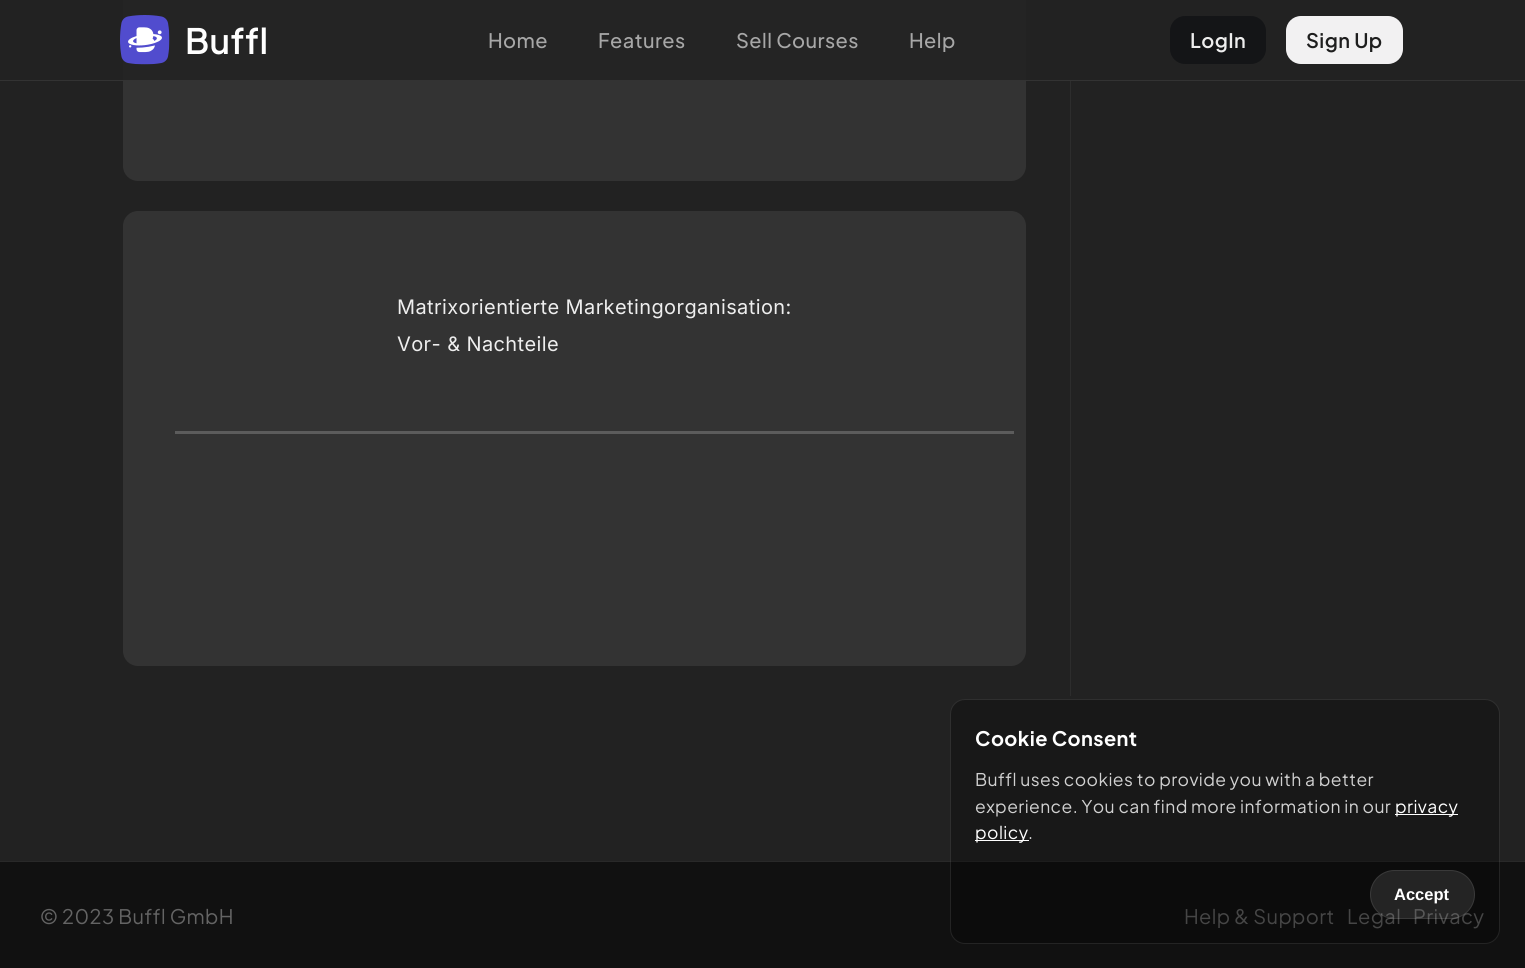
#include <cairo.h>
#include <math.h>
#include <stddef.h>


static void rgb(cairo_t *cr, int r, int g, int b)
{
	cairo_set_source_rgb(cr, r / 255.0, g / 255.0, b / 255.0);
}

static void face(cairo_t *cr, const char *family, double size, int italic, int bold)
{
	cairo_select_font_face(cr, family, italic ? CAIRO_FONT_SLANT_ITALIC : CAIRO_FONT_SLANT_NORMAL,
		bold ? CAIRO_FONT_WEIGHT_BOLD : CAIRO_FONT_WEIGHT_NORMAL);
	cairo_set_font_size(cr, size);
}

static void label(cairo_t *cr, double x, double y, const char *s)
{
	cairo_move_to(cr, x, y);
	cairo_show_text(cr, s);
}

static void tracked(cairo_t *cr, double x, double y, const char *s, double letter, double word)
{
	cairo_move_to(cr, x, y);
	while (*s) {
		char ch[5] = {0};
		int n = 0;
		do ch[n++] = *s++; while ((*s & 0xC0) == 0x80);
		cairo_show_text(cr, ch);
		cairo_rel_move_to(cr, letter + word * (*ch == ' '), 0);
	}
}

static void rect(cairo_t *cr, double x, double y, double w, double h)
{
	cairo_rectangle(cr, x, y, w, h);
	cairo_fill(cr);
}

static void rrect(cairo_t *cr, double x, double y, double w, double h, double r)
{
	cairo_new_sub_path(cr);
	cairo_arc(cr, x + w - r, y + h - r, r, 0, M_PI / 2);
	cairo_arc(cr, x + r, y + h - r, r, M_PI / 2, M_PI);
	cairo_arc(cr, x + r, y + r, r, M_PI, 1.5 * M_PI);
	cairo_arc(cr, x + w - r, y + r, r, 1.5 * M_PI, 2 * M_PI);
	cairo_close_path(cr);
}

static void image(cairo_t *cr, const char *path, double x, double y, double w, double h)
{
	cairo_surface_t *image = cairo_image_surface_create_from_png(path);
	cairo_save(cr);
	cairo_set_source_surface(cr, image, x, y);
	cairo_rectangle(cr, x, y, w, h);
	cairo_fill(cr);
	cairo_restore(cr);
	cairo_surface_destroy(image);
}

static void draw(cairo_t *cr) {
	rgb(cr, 34, 34, 34);
	cairo_paint(cr);
	rgb(cr, 51, 51, 51);
	rrect(cr, 123, -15, 903, 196, 15);
	cairo_fill(cr);
	rect(cr, 0, 80, 1525, 1);
	rgb(cr, 36, 36, 36);
	rect(cr, 123, 0, 903, 80);
	image(cr, "image0.png", 120, 15, 50, 50);
	face(cr, "Plus Jakarta Sans SemiBold", 35, 0, 0);
	rgb(cr, 255, 255, 255);
	tracked(cr, 185, 54, "Buffl", 0.4, 0);
	face(cr, "Plus Jakarta Sans Medium", 20, 0, 0);
	rgb(cr, 167, 167, 167);
	tracked(cr, 488, 48, "Home", 0.4, 0);
	tracked(cr, 598, 48, "Features", 0.4, 0);
	tracked(cr, 736, 48, "Sell Courses", 0.4, 0);
	tracked(cr, 909, 48, "Help", 0.4, 0);
	rgb(cr, 20, 21, 23);
	rrect(cr, 1170, 16, 96, 48, 15);
	cairo_fill(cr);
	face(cr, "Plus Jakarta Sans SemiBold", 20, 0, 0);
	rgb(cr, 238, 238, 238);
	tracked(cr, 1190, 48, "LogIn", 0.4, 0);
	rgb(cr, 242, 241, 242);
	rrect(cr, 1286, 16, 117, 48, 15);
	cairo_fill(cr);
	rgb(cr, 30, 30, 30);
	tracked(cr, 1306, 48, "Sign Up", 0.4, 0);
	rgb(cr, 51, 51, 51);
	rrect(cr, 123, 211, 903, 455, 15);
	cairo_fill(cr);
	face(cr, "Inter", 20, 0, 0);
	rgb(cr, 238, 238, 238);
	tracked(cr, 397, 314, "Matrixorientierte Marketingorganisation:", 0.4, 0);
	tracked(cr, 397, 351, "Vor- & Nachteile", 0.4, 0);
	rgb(cr, 92, 92, 92);
	rect(cr, 175, 431, 839, 3);
	rgb(cr, 45, 45, 45);
	rect(cr, 1070, 81, 1, 615);
	rgb(cr, 17, 17, 17);
	rect(cr, 0, 862, 1525, 106);
	rgb(cr, 41, 41, 41);
	rect(cr, 0, 861, 1525, 1);
	face(cr, "Plus Jakarta Sans", 20, 0, 0);
	rgb(cr, 100, 100, 100);
	tracked(cr, 1184, 924, "Help & Support", 0.4, 0);
	tracked(cr, 1347, 924, "Legal", 0.4, 0);
	tracked(cr, 1413, 924, "Privacy", 0.4, 0);
	cairo_set_source_rgba(cr, 0, 0, 0, 0.3);
	rrect(cr, 950, 699, 550, 245, 15);
	cairo_fill(cr);
	rrect(cr, 950.5, 699.5, 549, 244, 14.5);
	cairo_set_source_rgba(cr, 1, 1, 1, 0.1);
	cairo_set_line_width(cr, 1);
	cairo_stroke(cr);
	face(cr, "Plus Jakarta Sans", 20, 0, 1);
	rgb(cr, 255, 255, 255);
	tracked(cr, 975, 746, "Cookie Consent", 0.4, 0);
	face(cr, "Plus Jakarta Sans", 17.5, 0, 0);
	rgb(cr, 209, 209, 209);
	tracked(cr, 975, 786, "Buffl uses cookies to provide you with a better", 0.4, 0);
	tracked(cr, 975, 813, "experience. You can find more information in our", 0.4, 0);
	rgb(cr, 255, 255, 255);
	rect(cr, 1395, 814, 63, 1);
	tracked(cr, 1395, 813, "privacy", 0.4, 0);
	rect(cr, 975, 840, 54, 1);
	tracked(cr, 975, 839, "policy", 0.4, 0);
	rgb(cr, 209, 209, 209);
	tracked(cr, 1028, 839, ".", 0.4, 0);
	cairo_set_source_rgba(cr, 1, 1, 1, 0.1);
	rrect(cr, 1370, 870, 105, 49, 24.5);
	cairo_fill(cr);
	rrect(cr, 1370.5, 870.5, 104, 48, 24);
	cairo_stroke(cr);
	face(cr, "Liberation Sans", 16.5, 0, 1);
	rgb(cr, 255, 255, 255);
	label(cr, 1394, 900, "Accept");
	face(cr, "Plus Jakarta Sans", 20, 0, 0);
	rgb(cr, 100, 100, 100);
	tracked(cr, 40, 924, "© 2023 Buffl GmbH", 0.4, 0);
}

int main(void) {
	cairo_surface_t *surface = cairo_image_surface_create(CAIRO_FORMAT_RGB24, 1525, 968);
	cairo_t *cr = cairo_create(surface);
	cairo_font_options_t *options = cairo_font_options_create();
	cairo_font_options_set_hint_metrics(options, CAIRO_HINT_METRICS_OFF);
	cairo_font_options_set_hint_style(options, CAIRO_HINT_STYLE_NONE);
	cairo_set_font_options(cr, options);
	cairo_set_miter_limit(cr, 4);
	draw(cr);
	cairo_surface_write_to_png(surface, "render.png");
	cairo_font_options_destroy(options);
	cairo_destroy(cr);
	cairo_surface_destroy(surface);
	return 0;
}
